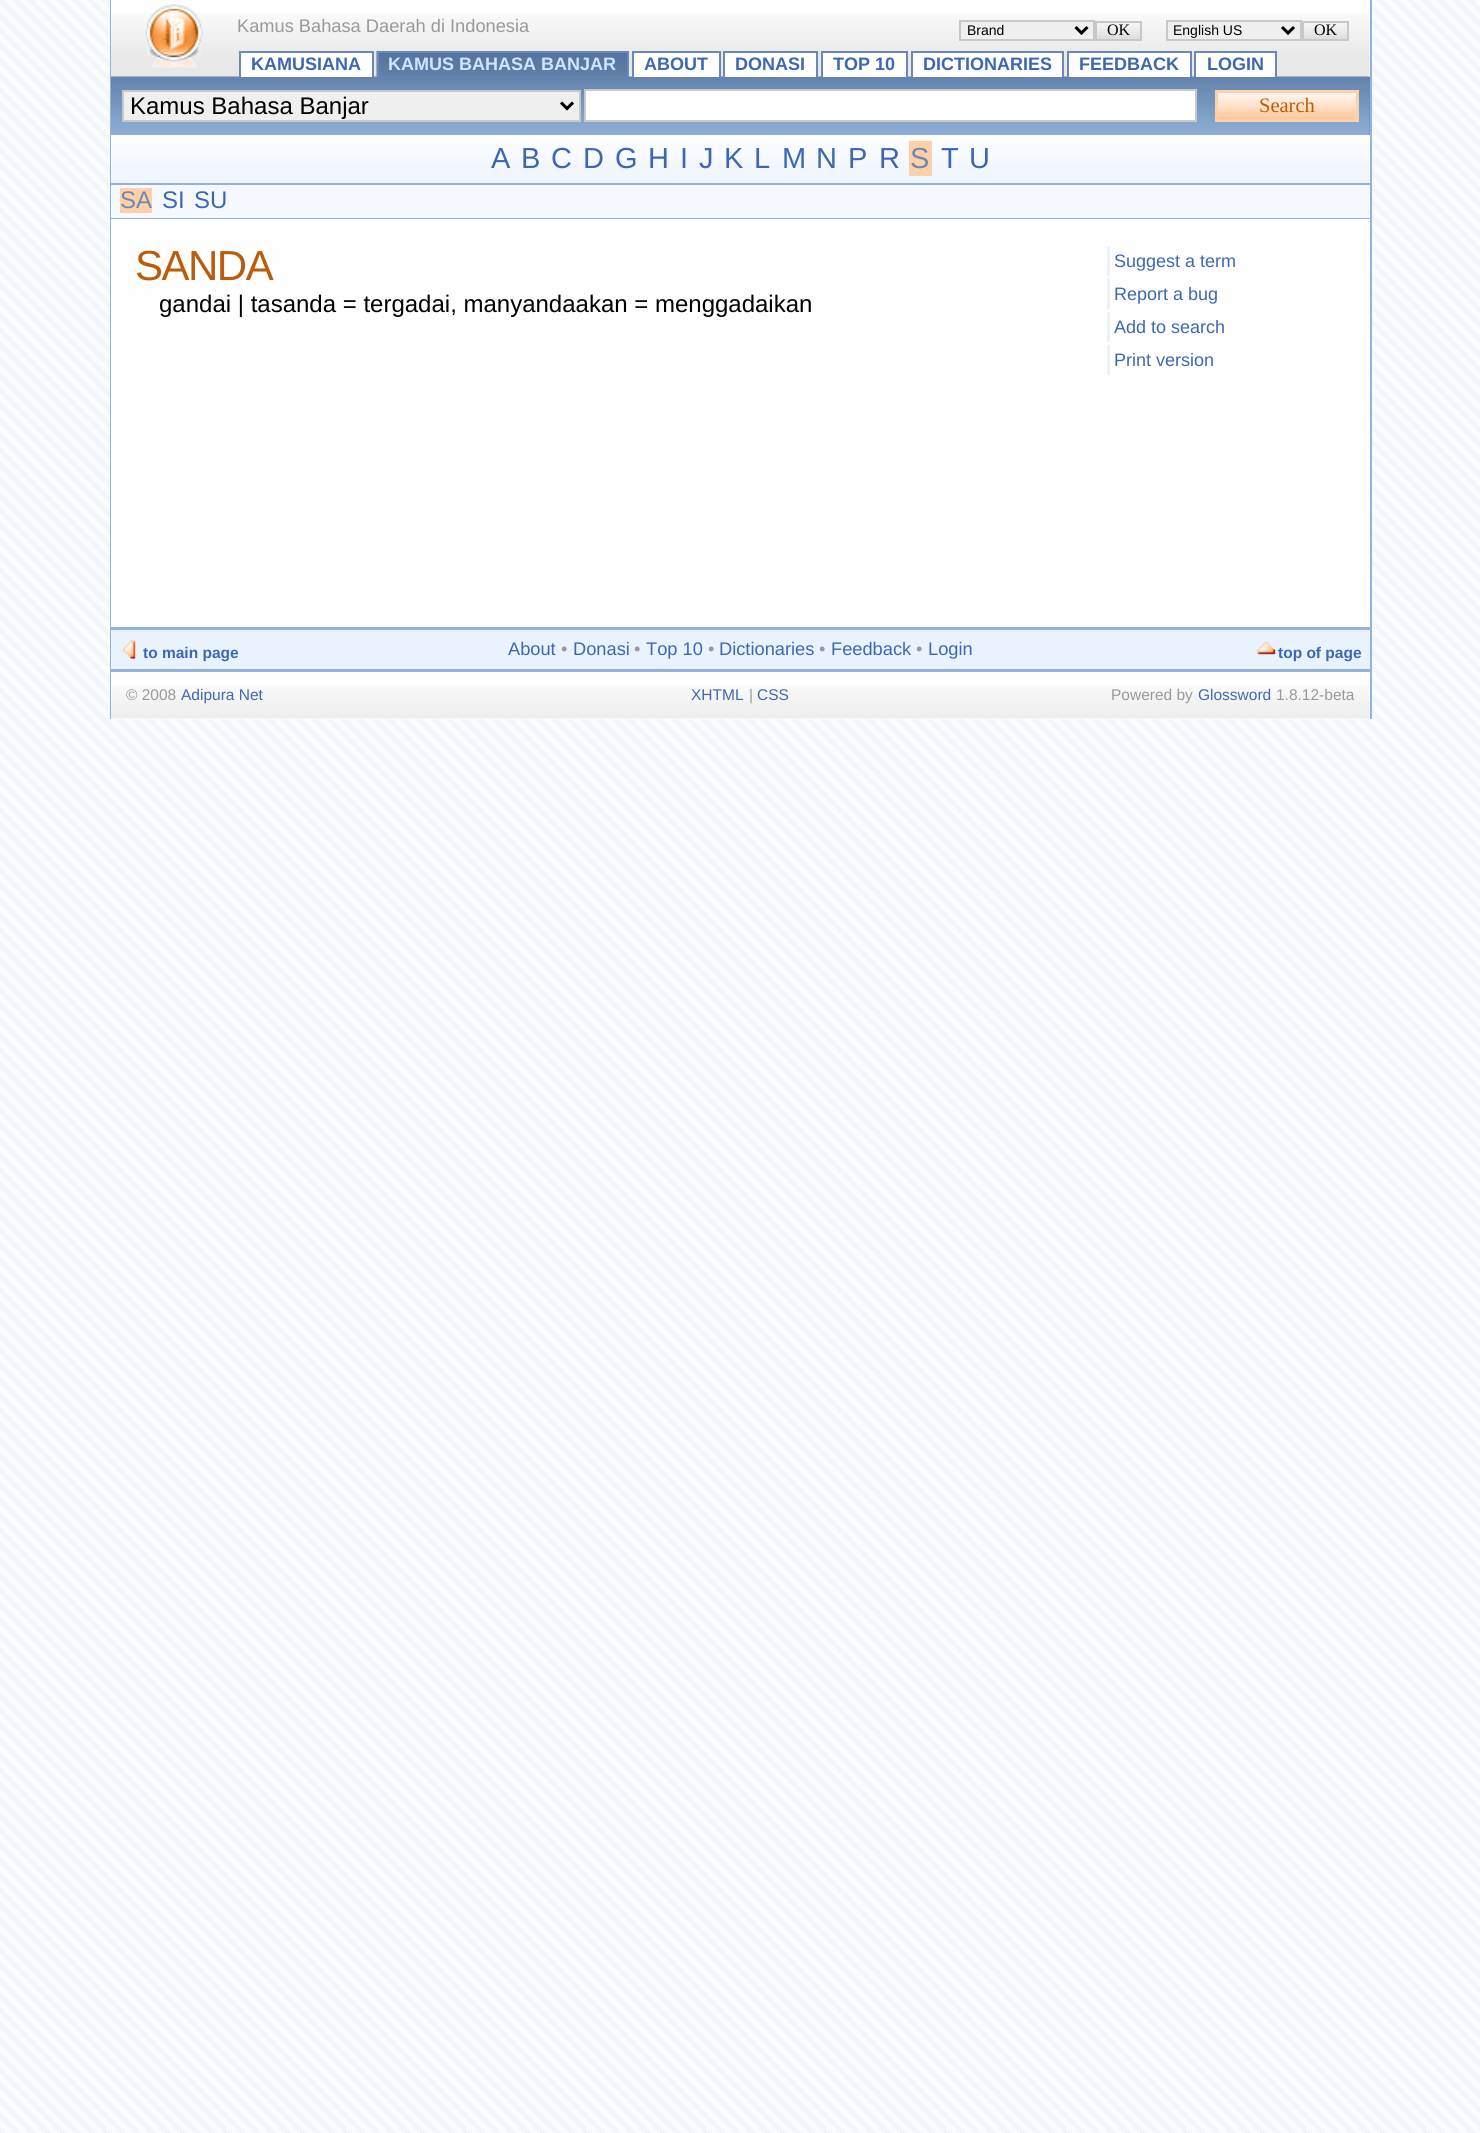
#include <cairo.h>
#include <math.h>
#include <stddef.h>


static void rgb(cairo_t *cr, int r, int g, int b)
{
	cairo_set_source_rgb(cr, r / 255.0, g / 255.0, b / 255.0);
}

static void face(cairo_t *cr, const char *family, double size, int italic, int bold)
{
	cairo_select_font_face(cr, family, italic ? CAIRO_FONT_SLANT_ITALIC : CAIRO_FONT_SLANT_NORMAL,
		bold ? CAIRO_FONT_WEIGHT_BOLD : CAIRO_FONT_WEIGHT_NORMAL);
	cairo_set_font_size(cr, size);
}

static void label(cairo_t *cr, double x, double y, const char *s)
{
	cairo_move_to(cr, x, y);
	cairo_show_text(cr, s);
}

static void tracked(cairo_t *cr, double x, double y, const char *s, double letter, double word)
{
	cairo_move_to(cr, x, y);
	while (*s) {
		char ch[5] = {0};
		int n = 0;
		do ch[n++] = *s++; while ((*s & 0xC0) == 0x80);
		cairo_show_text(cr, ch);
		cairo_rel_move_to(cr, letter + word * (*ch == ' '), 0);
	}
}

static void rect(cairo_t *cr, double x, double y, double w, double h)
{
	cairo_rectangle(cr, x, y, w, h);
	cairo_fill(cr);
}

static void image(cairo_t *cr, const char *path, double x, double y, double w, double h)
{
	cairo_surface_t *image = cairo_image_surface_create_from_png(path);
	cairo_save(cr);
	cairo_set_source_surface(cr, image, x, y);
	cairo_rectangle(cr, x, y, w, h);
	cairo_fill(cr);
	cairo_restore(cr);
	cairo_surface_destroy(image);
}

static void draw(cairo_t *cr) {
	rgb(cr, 255, 255, 255);
	cairo_paint(cr);
	image(cr, "image0.png", 0, 0, 1480, 2133);
	rgb(cr, 148, 179, 220);
	rect(cr, 1370, 0, 2, 719);
	rect(cr, 110, 0, 1, 719);
	rgb(cr, 254, 254, 255);
	rect(cr, 111, 0, 1259, 77);
	image(cr, "image1.png", 111, 13, 1259, 64);
	image(cr, "image2.png", 145, 4, 58, 64);
	face(cr, "Liberation Sans", 18.25, 0, 0);
	rgb(cr, 153, 153, 153);
	label(cr, 237, 32, "Kamus Bahasa Daerah di Indonesia");
	rgb(cr, 239, 239, 239);
	rect(cr, 961, 22, 132, 12);
	cairo_rectangle(cr, 960, 21, 134, 19);
	rgb(cr, 200, 200, 200);
	cairo_stroke(cr);
	cairo_new_path(cr);
	cairo_move_to(cr, 1075.5, 27);
	cairo_line_to(cr, 1081.5, 33);
	cairo_line_to(cr, 1087.5, 27);
	rgb(cr, 0, 0, 0);
	cairo_set_line_width(cr, 3);
	cairo_stroke(cr);
	face(cr, "Liberation Sans", 14, 0, 0);
	label(cr, 967, 35, "Brand");
	image(cr, "image3.png", 1097, 23, 43, 16);
	cairo_rectangle(cr, 1096, 22, 45, 18);
	rgb(cr, 200, 200, 200);
	cairo_set_line_width(cr, 2);
	cairo_stroke(cr);
	face(cr, "Liberation Serif", 16, 0, 0);
	rgb(cr, 0, 0, 0);
	label(cr, 1107, 35, "OK");
	rgb(cr, 239, 239, 239);
	rect(cr, 1168, 22, 132, 12);
	cairo_rectangle(cr, 1167, 21, 134, 19);
	rgb(cr, 200, 200, 200);
	cairo_stroke(cr);
	cairo_new_path(cr);
	cairo_move_to(cr, 1282, 27);
	cairo_line_to(cr, 1288, 33);
	cairo_line_to(cr, 1294, 27);
	rgb(cr, 0, 0, 0);
	cairo_set_line_width(cr, 3);
	cairo_stroke(cr);
	face(cr, "Liberation Sans", 14, 0, 0);
	label(cr, 1173, 35, "English US");
	image(cr, "image3.png", 1304, 23, 43, 16);
	cairo_rectangle(cr, 1303, 22, 45, 18);
	rgb(cr, 200, 200, 200);
	cairo_set_line_width(cr, 2);
	cairo_stroke(cr);
	face(cr, "Liberation Serif", 16, 0, 0);
	rgb(cr, 0, 0, 0);
	label(cr, 1314, 35, "OK");
	rgb(cr, 107, 138, 179);
	rect(cr, 1369, 77, 1, 58);
	image(cr, "image5.png", 111, 76, 1259, 59);
	rgb(cr, 254, 254, 255);
	rect(cr, 241, 53, 131, 24);
	rgb(cr, 107, 138, 179);
	rect(cr, 239, 51, 135, 2);
	rect(cr, 372, 51, 2, 26);
	rect(cr, 239, 51, 2, 26);
	face(cr, "Liberation Sans", 18, 0, 1);
	rgb(cr, 62, 103, 179);
	label(cr, 251, 70, "KAMUSIANA");
	rgb(cr, 107, 138, 179);
	rect(cr, 379, 76, 248, 1);
	image(cr, "image4.png", 376, 51, 251, 26);
	rect(cr, 377, 51, 252, 2);
	rect(cr, 627, 51, 2, 26);
	rect(cr, 377, 51, 2, 26);
	rgb(cr, 209, 228, 255);
	label(cr, 388, 70, "KAMUS BAHASA BANJAR");
	rgb(cr, 254, 254, 255);
	rect(cr, 634, 53, 85, 24);
	rgb(cr, 107, 138, 179);
	rect(cr, 632, 51, 88, 2);
	rect(cr, 719, 51, 2, 26);
	rect(cr, 632, 51, 2, 26);
	rgb(cr, 62, 103, 179);
	label(cr, 644, 70, "ABOUT");
	rgb(cr, 254, 254, 255);
	rect(cr, 725, 53, 91, 24);
	rgb(cr, 107, 138, 179);
	rect(cr, 723, 51, 95, 2);
	rect(cr, 816, 51, 2, 26);
	rect(cr, 723, 51, 2, 26);
	rgb(cr, 62, 103, 179);
	label(cr, 735, 70, "DONASI");
	rgb(cr, 254, 254, 255);
	rect(cr, 823, 53, 83, 24);
	rgb(cr, 107, 138, 179);
	rect(cr, 821, 51, 87, 2);
	rect(cr, 906, 51, 2, 26);
	rect(cr, 821, 51, 2, 26);
	rgb(cr, 62, 103, 179);
	label(cr, 833, 70, "TOP 10");
	rgb(cr, 254, 254, 255);
	rect(cr, 913, 53, 149, 24);
	rgb(cr, 107, 138, 179);
	rect(cr, 911, 51, 153, 2);
	rect(cr, 1062, 51, 2, 26);
	rect(cr, 911, 51, 2, 26);
	rgb(cr, 62, 103, 179);
	label(cr, 923, 70, "DICTIONARIES");
	rgb(cr, 254, 254, 255);
	rect(cr, 1069, 53, 121, 24);
	rgb(cr, 107, 138, 179);
	rect(cr, 1067, 51, 124, 2);
	rect(cr, 1190, 51, 2, 26);
	rect(cr, 1067, 51, 2, 26);
	rgb(cr, 62, 103, 179);
	label(cr, 1079, 70, "FEEDBACK");
	rgb(cr, 254, 254, 255);
	rect(cr, 1196, 53, 79, 24);
	rgb(cr, 107, 138, 179);
	rect(cr, 1194, 51, 83, 2);
	rect(cr, 1275, 51, 2, 26);
	rect(cr, 1194, 51, 2, 26);
	rgb(cr, 62, 103, 179);
	label(cr, 1207, 70, "LOGIN");
	rgb(cr, 239, 239, 239);
	cairo_rectangle(cr, 123, 91, 457, 30);
	cairo_fill_preserve(cr);
	rgb(cr, 200, 200, 200);
	cairo_stroke(cr);
	cairo_new_path(cr);
	cairo_move_to(cr, 561, 102.5);
	cairo_line_to(cr, 567, 108.5);
	cairo_line_to(cr, 573, 102.5);
	rgb(cr, 0, 0, 0);
	cairo_set_line_width(cr, 3);
	cairo_stroke(cr);
	face(cr, "Liberation Sans", 24, 0, 0);
	label(cr, 130, 114, "Kamus Bahasa Banjar");
	rgb(cr, 255, 255, 255);
	cairo_rectangle(cr, 585, 90, 611, 31);
	cairo_fill_preserve(cr);
	rgb(cr, 200, 200, 200);
	cairo_set_line_width(cr, 2);
	cairo_stroke(cr);
	image(cr, "image6.png", 1218, 93, 138, 26);
	cairo_rectangle(cr, 1216.5, 91.5, 141, 29);
	rgb(cr, 255, 208, 167);
	cairo_set_line_width(cr, 3);
	cairo_stroke(cr);
	face(cr, "Liberation Serif", 20.5, 0, 0);
	rgb(cr, 185, 92, 12);
	label(cr, 1259, 112, "Search");
	rgb(cr, 254, 254, 254);
	rect(cr, 111, 135, 1259, 48);
	image(cr, "image7.png", 111, 143, 1259, 40);
	rgb(cr, 148, 179, 220);
	rect(cr, 111, 183, 1259, 2);
	face(cr, "Liberation Sans", 29, 0, 0);
	rgb(cr, 62, 103, 179);
	label(cr, 491, 168, "A");
	label(cr, 521, 168, "B");
	label(cr, 551, 168, "C");
	label(cr, 583, 168, "D");
	label(cr, 615, 168, "G");
	label(cr, 648, 168, "H");
	label(cr, 680, 168, "I");
	label(cr, 699, 168, "J");
	label(cr, 724, 168, "K");
	label(cr, 754, 168, "L");
	label(cr, 782, 168, "M");
	label(cr, 816, 168, "N");
	label(cr, 848, 168, "P");
	label(cr, 879, 168, "R");
	rgb(cr, 255, 208, 167);
	rect(cr, 909, 141, 23, 35);
	rgb(cr, 107, 138, 179);
	label(cr, 910, 168, "S");
	rgb(cr, 62, 103, 179);
	label(cr, 941, 168, "T");
	label(cr, 969, 168, "U");
	rgb(cr, 245, 249, 255);
	rect(cr, 111, 185, 1259, 33);
	rgb(cr, 148, 179, 220);
	rect(cr, 111, 218, 1259, 1);
	rgb(cr, 255, 208, 167);
	rect(cr, 120, 188, 32, 25);
	face(cr, "Liberation Sans", 24, 0, 0);
	rgb(cr, 107, 138, 179);
	label(cr, 120, 208, "SA");
	rgb(cr, 62, 103, 179);
	label(cr, 162, 208, "SI");
	label(cr, 194, 208, "SU");
	rgb(cr, 254, 254, 255);
	rect(cr, 111, 219, 1259, 408);
	face(cr, "Liberation Sans", 42, 0, 0);
	rgb(cr, 185, 92, 12);
	tracked(cr, 135, 280, "SANDA", -1.5, 0);
	rgb(cr, 235, 242, 247);
	rect(cr, 1107, 246, 3, 30);
	face(cr, "Liberation Sans", 18, 0, 0);
	rgb(cr, 62, 103, 179);
	label(cr, 1114, 267, "Suggest a term");
	rgb(cr, 235, 242, 247);
	rect(cr, 1107, 279, 3, 30);
	rgb(cr, 62, 103, 179);
	label(cr, 1114, 300, "Report a bug");
	rgb(cr, 235, 242, 247);
	rect(cr, 1107, 312, 3, 30);
	rgb(cr, 62, 103, 179);
	label(cr, 1114, 333, "Add to search");
	rgb(cr, 235, 242, 247);
	rect(cr, 1107, 345, 3, 30);
	rgb(cr, 62, 103, 179);
	label(cr, 1114, 366, "Print version");
	face(cr, "Liberation Sans", 24, 0, 0);
	rgb(cr, 0, 0, 0);
	label(cr, 159, 312, "gandai | tasanda = tergadai, manyandaakan = menggadaikan");
	rgb(cr, 148, 179, 220);
	rect(cr, 111, 627, 1259, 3);
	rgb(cr, 233, 242, 255);
	rect(cr, 111, 630, 1259, 39);
	image(cr, "image8.png", 122, 640, 14, 19);
	face(cr, "Liberation Sans", 15.5, 0, 1);
	rgb(cr, 62, 103, 179);
	label(cr, 143, 658, "to main page");
	face(cr, "Liberation Sans", 18.25, 0, 0);
	label(cr, 508, 655, "About");
	rgb(cr, 153, 153, 153);
	label(cr, 561, 655, "•");
	rgb(cr, 62, 103, 179);
	label(cr, 573, 655, "Donasi");
	rgb(cr, 153, 153, 153);
	label(cr, 634, 655, "•");
	rgb(cr, 62, 103, 179);
	label(cr, 646, 655, "Top 10");
	rgb(cr, 153, 153, 153);
	label(cr, 708, 655, "•");
	rgb(cr, 62, 103, 179);
	label(cr, 719, 655, "Dictionaries");
	rgb(cr, 153, 153, 153);
	label(cr, 819, 655, "•");
	rgb(cr, 62, 103, 179);
	label(cr, 831, 655, "Feedback");
	rgb(cr, 153, 153, 153);
	label(cr, 916, 655, "•");
	rgb(cr, 62, 103, 179);
	label(cr, 928, 655, "Login");
	image(cr, "image9.png", 1256, 641, 20, 14);
	face(cr, "Liberation Sans", 15.5, 0, 1);
	label(cr, 1278, 658, "top of page");
	rgb(cr, 148, 179, 220);
	rect(cr, 111, 669, 1259, 3);
	rgb(cr, 254, 254, 255);
	rect(cr, 111, 672, 1259, 47);
	image(cr, "image10.png", 111, 685, 1259, 34);
	face(cr, "Liberation Sans", 15.5, 0, 0);
	rgb(cr, 153, 153, 153);
	label(cr, 126, 700, "© 2008");
	rgb(cr, 62, 103, 179);
	label(cr, 181, 700, "Adipura Net");
	label(cr, 691, 700, "XHTML");
	rgb(cr, 153, 153, 153);
	label(cr, 749, 700, "|");
	rgb(cr, 62, 103, 179);
	label(cr, 757, 700, "CSS");
	rgb(cr, 153, 153, 153);
	label(cr, 1111, 700, "Powered by");
	rgb(cr, 62, 103, 179);
	label(cr, 1198, 700, "Glossword");
	rgb(cr, 153, 153, 153);
	label(cr, 1276, 700, "1.8.12-beta");
}

int main(void) {
	cairo_surface_t *surface = cairo_image_surface_create(CAIRO_FORMAT_RGB24, 1480, 2133);
	cairo_t *cr = cairo_create(surface);
	cairo_font_options_t *options = cairo_font_options_create();
	cairo_font_options_set_hint_metrics(options, CAIRO_HINT_METRICS_OFF);
	cairo_font_options_set_hint_style(options, CAIRO_HINT_STYLE_NONE);
	cairo_set_font_options(cr, options);
	cairo_set_miter_limit(cr, 4);
	draw(cr);
	cairo_surface_write_to_png(surface, "render.png");
	cairo_font_options_destroy(options);
	cairo_destroy(cr);
	cairo_surface_destroy(surface);
	return 0;
}
